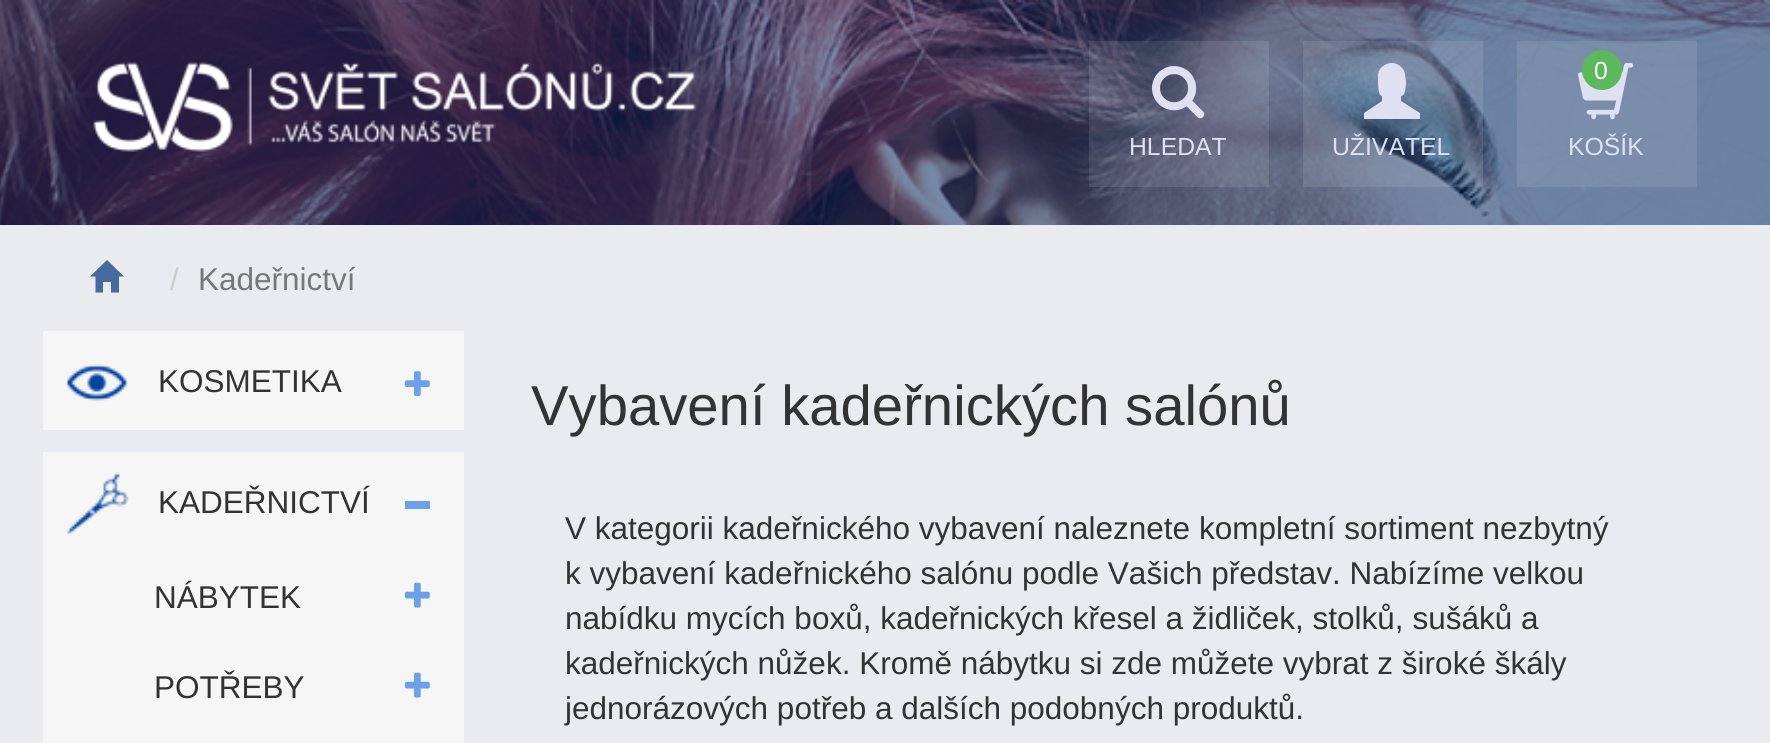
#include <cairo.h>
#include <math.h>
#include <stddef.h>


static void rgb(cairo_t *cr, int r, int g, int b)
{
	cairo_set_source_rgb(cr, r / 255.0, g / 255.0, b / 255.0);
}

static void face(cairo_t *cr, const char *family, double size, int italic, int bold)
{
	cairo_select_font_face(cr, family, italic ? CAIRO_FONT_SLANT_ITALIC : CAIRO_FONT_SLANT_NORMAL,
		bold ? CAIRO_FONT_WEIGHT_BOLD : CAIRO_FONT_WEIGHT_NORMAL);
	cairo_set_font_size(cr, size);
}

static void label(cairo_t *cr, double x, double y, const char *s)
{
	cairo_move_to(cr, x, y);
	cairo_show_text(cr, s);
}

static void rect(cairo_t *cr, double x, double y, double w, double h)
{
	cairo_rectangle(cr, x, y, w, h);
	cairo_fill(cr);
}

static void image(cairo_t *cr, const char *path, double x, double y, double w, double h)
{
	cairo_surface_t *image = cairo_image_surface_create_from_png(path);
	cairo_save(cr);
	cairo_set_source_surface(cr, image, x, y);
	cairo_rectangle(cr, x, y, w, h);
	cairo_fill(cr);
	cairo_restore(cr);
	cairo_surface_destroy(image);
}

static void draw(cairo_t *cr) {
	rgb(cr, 233, 235, 238);
	cairo_paint(cr);
	image(cr, "image0.png", 0, 0, 1770, 225);
	image(cr, "image1.png", 93, 62, 603, 90);
	cairo_set_source_rgba(cr, 1, 1, 1, 0.1);
	rect(cr, 1089, 41, 180, 146);
	image(cr, "image2.png", 1152, 66, 53, 53);
	face(cr, "Liberation Sans", 24.75, 0, 0);
	rgb(cr, 223, 224, 242);
	label(cr, 1129, 155, "HLEDAT");
	cairo_set_source_rgba(cr, 1, 1, 1, 0.1);
	rect(cr, 1303, 41, 180, 146);
	rgb(cr, 223, 224, 242);
	cairo_new_path(cr);
	cairo_move_to(cr, 1364, 119);
	cairo_line_to(cr, 1364, 113);
	cairo_line_to(cr, 1382, 101);
	cairo_line_to(cr, 1382, 96);
	cairo_curve_to(cr, 1378, 96, 1378, 84, 1378, 82);
	cairo_line_to(cr, 1378, 74);
	cairo_curve_to(cr, 1379, 68, 1385, 63, 1392, 63);
	cairo_curve_to(cr, 1398, 63, 1404, 68, 1405, 74);
	cairo_line_to(cr, 1406, 82);
	cairo_curve_to(cr, 1406, 84, 1406, 96, 1401, 96);
	cairo_line_to(cr, 1401, 101);
	cairo_line_to(cr, 1420, 113);
	cairo_line_to(cr, 1420, 119);
	cairo_close_path(cr);
	cairo_fill(cr);
	label(cr, 1332, 155, "UŽIVATEL");
	cairo_set_source_rgba(cr, 1, 1, 1, 0.1);
	rect(cr, 1517, 41, 180, 146);
	image(cr, "image3.png", 1578, 63, 56, 57);
	rgb(cr, 92, 184, 92);
	cairo_arc(cr, 1602, 70, 20, 0, 2 * M_PI);
	cairo_fill(cr);
	rgb(cr, 255, 255, 255);
	label(cr, 1594, 79, "0");
	rgb(cr, 223, 224, 242);
	label(cr, 1568, 155, "KOŠÍK");
	rgb(cr, 70, 106, 157);
	cairo_new_path(cr);
	cairo_move_to(cr, 90, 276.5);
	cairo_line_to(cr, 107, 260);
	cairo_line_to(cr, 124, 276.5);
	cairo_line_to(cr, 119, 276.5);
	cairo_line_to(cr, 119, 292.5);
	cairo_line_to(cr, 111, 292.5);
	cairo_line_to(cr, 111, 282);
	cairo_line_to(cr, 103, 282);
	cairo_line_to(cr, 103, 292.5);
	cairo_line_to(cr, 95.5, 292.5);
	cairo_line_to(cr, 95.5, 276.5);
	cairo_close_path(cr);
	cairo_fill(cr);
	face(cr, "Liberation Sans", 31.5, 0, 0);
	rgb(cr, 204, 204, 204);
	label(cr, 170, 290, "/");
	rgb(cr, 119, 119, 119);
	label(cr, 198, 290, "Kadeřnictví");
	rgb(cr, 246, 246, 246);
	rect(cr, 43, 331, 421, 99);
	image(cr, "image4.png", 65, 364, 63, 38);
	rgb(cr, 51, 51, 51);
	label(cr, 158, 392, "KOSMETIKA");
	image(cr, "image5.png", 405, 371, 25, 25);
	rgb(cr, 246, 246, 246);
	rect(cr, 43, 452, 421, 291);
	image(cr, "image6.png", 67, 472, 62, 62);
	rgb(cr, 51, 51, 51);
	label(cr, 158, 513, "KADEŘNICTVÍ");
	rgb(cr, 108, 160, 235);
	rect(cr, 405, 501, 25, 8);
	rgb(cr, 51, 51, 51);
	label(cr, 154, 608, "NÁBYTEK");
	image(cr, "image7.png", 405, 582, 25, 26);
	label(cr, 154, 698, "POTŘEBY");
	image(cr, "image7.png", 405, 672, 25, 26);
	face(cr, "Liberation Sans", 56.25, 0, 0);
	label(cr, 531, 425, "Vybavení kadeřnických salónů");
	face(cr, "Liberation Sans", 31.5, 0, 0);
	label(cr, 565, 539, "V kategorii kadeřnického vybavení naleznete kompletní sortiment nezbytný");
	label(cr, 565, 584, "k vybavení kadeřnického salónu podle Vašich představ. Nabízíme velkou");
	label(cr, 565, 629, "nabídku mycích boxů, kadeřnických křesel a židliček, stolků, sušáků a");
	label(cr, 565, 674, "kadeřnických nůžek. Kromě nábytku si zde můžete vybrat z široké škály");
	label(cr, 565, 719, "jednorázových potřeb a dalších podobných produktů.");
}

int main(void) {
	cairo_surface_t *surface = cairo_image_surface_create(CAIRO_FORMAT_RGB24, 1770, 743);
	cairo_t *cr = cairo_create(surface);
	cairo_font_options_t *options = cairo_font_options_create();
	cairo_font_options_set_hint_metrics(options, CAIRO_HINT_METRICS_OFF);
	cairo_font_options_set_hint_style(options, CAIRO_HINT_STYLE_NONE);
	cairo_set_font_options(cr, options);
	cairo_set_miter_limit(cr, 4);
	draw(cr);
	cairo_surface_write_to_png(surface, "render.png");
	cairo_font_options_destroy(options);
	cairo_destroy(cr);
	cairo_surface_destroy(surface);
	return 0;
}
